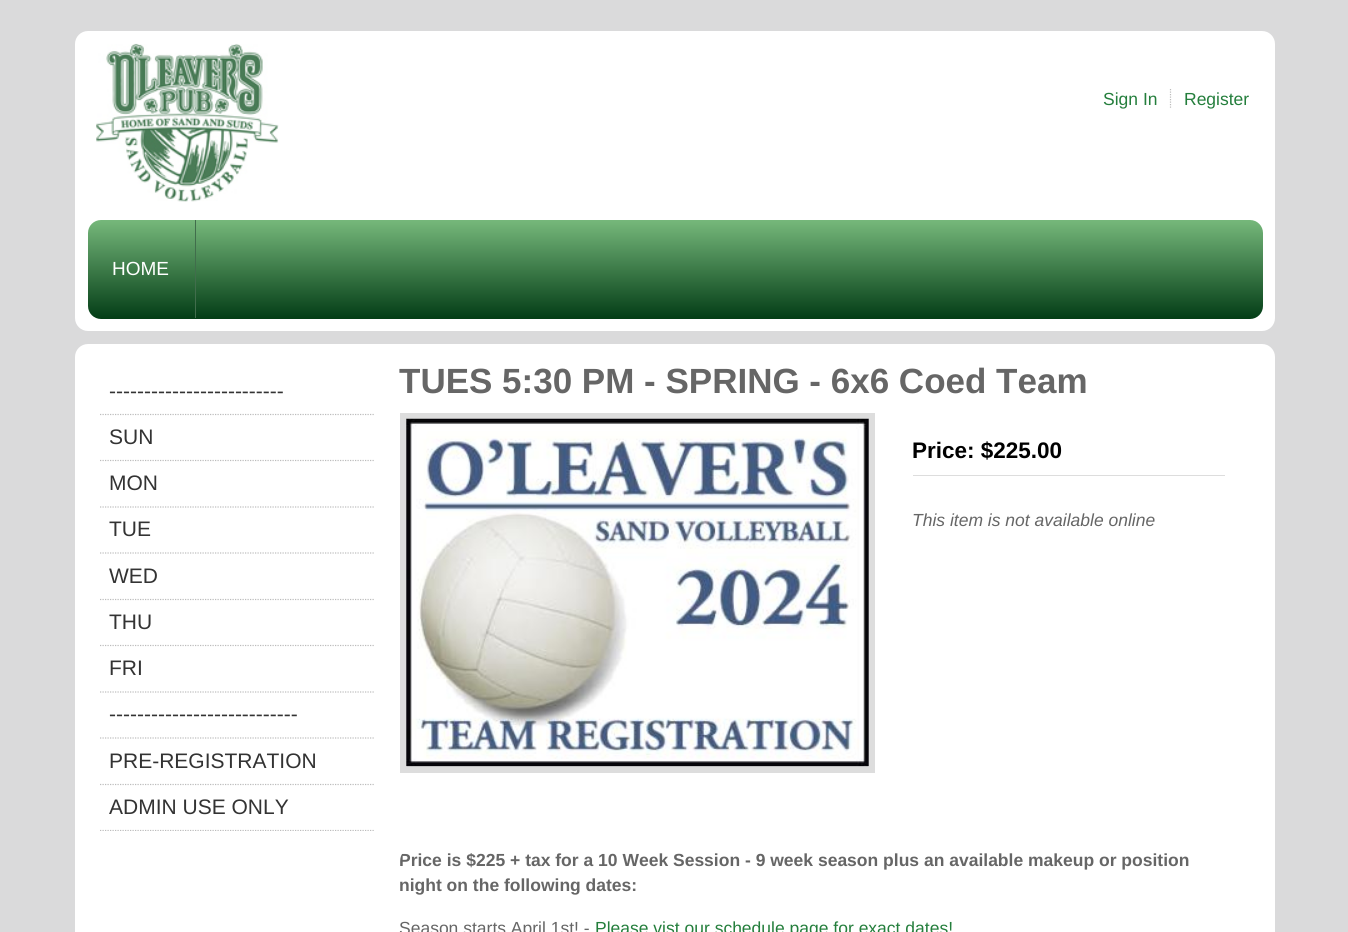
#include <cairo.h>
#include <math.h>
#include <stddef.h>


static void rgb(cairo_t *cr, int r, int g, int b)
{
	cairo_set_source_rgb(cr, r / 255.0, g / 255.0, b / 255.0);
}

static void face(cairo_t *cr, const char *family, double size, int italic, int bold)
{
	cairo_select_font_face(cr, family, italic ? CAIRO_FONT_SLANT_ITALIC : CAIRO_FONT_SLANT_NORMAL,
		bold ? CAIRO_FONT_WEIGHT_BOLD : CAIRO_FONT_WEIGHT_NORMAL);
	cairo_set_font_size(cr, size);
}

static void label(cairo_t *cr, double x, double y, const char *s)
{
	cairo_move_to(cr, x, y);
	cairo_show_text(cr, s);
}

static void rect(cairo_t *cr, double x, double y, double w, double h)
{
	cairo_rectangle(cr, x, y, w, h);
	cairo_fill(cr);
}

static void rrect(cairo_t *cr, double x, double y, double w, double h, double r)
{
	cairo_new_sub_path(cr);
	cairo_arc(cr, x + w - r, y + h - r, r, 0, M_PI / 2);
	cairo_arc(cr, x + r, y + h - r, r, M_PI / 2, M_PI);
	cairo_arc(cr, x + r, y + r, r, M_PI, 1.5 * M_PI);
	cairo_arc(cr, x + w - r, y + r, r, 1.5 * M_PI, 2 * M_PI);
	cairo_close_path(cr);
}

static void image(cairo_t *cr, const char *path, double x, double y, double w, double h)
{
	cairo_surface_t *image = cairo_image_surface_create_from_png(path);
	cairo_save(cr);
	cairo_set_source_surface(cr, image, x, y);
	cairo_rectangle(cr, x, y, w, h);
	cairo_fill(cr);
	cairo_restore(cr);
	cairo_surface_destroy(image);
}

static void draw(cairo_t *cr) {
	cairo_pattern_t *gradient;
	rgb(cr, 218, 218, 219);
	cairo_paint(cr);
	rgb(cr, 255, 255, 255);
	rrect(cr, 75, 31, 1200, 300, 13);
	cairo_fill(cr);
	image(cr, "image0.png", 96, 43, 183, 159);
	face(cr, "Liberation Sans", 17.5, 0, 0);
	rgb(cr, 36, 126, 60);
	label(cr, 1103, 105, "Sign In");
	cairo_new_path(cr);
	cairo_move_to(cr, 1170.5, 89);
	cairo_line_to(cr, 1170.5, 109);
	rgb(cr, 188, 188, 188);
	cairo_set_line_width(cr, 1.2);
	cairo_set_dash(cr, (double[]){1.25, 1.25}, 2, 0);
	cairo_stroke(cr);
	rgb(cr, 36, 126, 60);
	label(cr, 1184, 105, "Register");
	gradient = cairo_pattern_create_linear(88, 220, 88, 319);
	cairo_pattern_add_color_stop_rgba(gradient, 0, 0.463, 0.722, 0.482, 1);
	cairo_pattern_add_color_stop_rgba(gradient, 1, 0.012, 0.239, 0.086, 1);
	cairo_set_source(cr, gradient);
	cairo_pattern_destroy(gradient);
	rrect(cr, 88, 220, 1175, 99, 13);
	cairo_fill(cr);
	rgb(cr, 65, 109, 76);
	rect(cr, 195, 220, 1, 98);
	face(cr, "Liberation Sans", 19, 0, 0);
	rgb(cr, 255, 255, 255);
	label(cr, 112, 275, "HOME");
	rrect(cr, 75, 344, 1200, 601, 13);
	cairo_fill(cr);
	cairo_new_path(cr);
	cairo_move_to(cr, 100, 414.5);
	cairo_line_to(cr, 375, 414.5);
	rgb(cr, 188, 188, 188);
	cairo_stroke(cr);
	face(cr, "Liberation Sans", 21, 0, 0);
	rgb(cr, 51, 51, 51);
	label(cr, 109, 398, "-------------------------");
	cairo_new_path(cr);
	cairo_move_to(cr, 100, 460.5);
	cairo_line_to(cr, 375, 460.5);
	rgb(cr, 188, 188, 188);
	cairo_stroke(cr);
	rgb(cr, 51, 51, 51);
	label(cr, 109, 444, "SUN");
	cairo_new_path(cr);
	cairo_move_to(cr, 100, 507);
	cairo_line_to(cr, 375, 507);
	rgb(cr, 188, 188, 188);
	cairo_stroke(cr);
	rgb(cr, 51, 51, 51);
	label(cr, 109, 490, "MON");
	cairo_new_path(cr);
	cairo_move_to(cr, 100, 553);
	cairo_line_to(cr, 375, 553);
	rgb(cr, 188, 188, 188);
	cairo_stroke(cr);
	rgb(cr, 51, 51, 51);
	label(cr, 109, 536, "TUE");
	cairo_new_path(cr);
	cairo_move_to(cr, 100, 599.5);
	cairo_line_to(cr, 375, 599.5);
	rgb(cr, 188, 188, 188);
	cairo_stroke(cr);
	rgb(cr, 51, 51, 51);
	label(cr, 109, 583, "WED");
	cairo_new_path(cr);
	cairo_move_to(cr, 100, 645.5);
	cairo_line_to(cr, 375, 645.5);
	rgb(cr, 188, 188, 188);
	cairo_stroke(cr);
	rgb(cr, 51, 51, 51);
	label(cr, 109, 629, "THU");
	cairo_new_path(cr);
	cairo_move_to(cr, 100, 692);
	cairo_line_to(cr, 375, 692);
	rgb(cr, 188, 188, 188);
	cairo_stroke(cr);
	rgb(cr, 51, 51, 51);
	label(cr, 109, 675, "FRI");
	cairo_new_path(cr);
	cairo_move_to(cr, 100, 738);
	cairo_line_to(cr, 375, 738);
	rgb(cr, 188, 188, 188);
	cairo_stroke(cr);
	rgb(cr, 51, 51, 51);
	label(cr, 109, 721, "---------------------------");
	cairo_new_path(cr);
	cairo_move_to(cr, 100, 784.5);
	cairo_line_to(cr, 375, 784.5);
	rgb(cr, 188, 188, 188);
	cairo_stroke(cr);
	rgb(cr, 51, 51, 51);
	label(cr, 109, 768, "PRE-REGISTRATION");
	cairo_save(cr);
	cairo_rectangle(cr, 100, 369, 275, 462);
	cairo_clip(cr);
	cairo_new_path(cr);
	cairo_move_to(cr, 100, 830.5);
	cairo_line_to(cr, 375, 830.5);
	rgb(cr, 188, 188, 188);
	cairo_stroke(cr);
	cairo_restore(cr);
	label(cr, 109, 814, "ADMIN USE ONLY");
	face(cr, "Liberation Sans", 35, 0, 1);
	rgb(cr, 102, 102, 102);
	label(cr, 399, 393, "TUES 5:30 PM - SPRING - 6x6 Coed Team");
	cairo_rectangle(cr, 403, 416, 469, 354);
	rgb(cr, 221, 221, 221);
	cairo_set_line_width(cr, 6);
	cairo_set_dash(cr, NULL, 0, 0);
	cairo_stroke(cr);
	image(cr, "image1.png", 406, 418, 463, 349);
	face(cr, "Liberation Sans", 22.5, 0, 1);
	rgb(cr, 0, 0, 0);
	label(cr, 912, 458, "Price: $225.00");
	rgb(cr, 221, 221, 221);
	rect(cr, 913, 475, 312, 1);
	face(cr, "Liberation Sans", 17.5, 1, 0);
	rgb(cr, 102, 102, 102);
	label(cr, 912, 526, "This item is not available online");
	cairo_save(cr);
	rrect(cr, 400, 848, 850, 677, 13);
	cairo_clip(cr);
	face(cr, "Liberation Sans", 17.5, 0, 1);
	label(cr, 399, 866, "Price is $");
	cairo_restore(cr);
	face(cr, "Liberation Sans", 17.5, 0, 1);
	label(cr, 476, 866, "225 + tax for a 10 Week Session - 9 week season plus an available makeup or position");
	label(cr, 399, 891, "night on the following dates:");
	face(cr, "Liberation Sans", 17.5, 0, 0);
	label(cr, 399, 934, "Season starts April 1st! -");
	rgb(cr, 36, 126, 60);
	label(cr, 595, 934, "Please vist our schedule page for exact dates!");
}

int main(void) {
	cairo_surface_t *surface = cairo_image_surface_create(CAIRO_FORMAT_RGB24, 1348, 932);
	cairo_t *cr = cairo_create(surface);
	cairo_font_options_t *options = cairo_font_options_create();
	cairo_font_options_set_hint_metrics(options, CAIRO_HINT_METRICS_OFF);
	cairo_font_options_set_hint_style(options, CAIRO_HINT_STYLE_NONE);
	cairo_set_font_options(cr, options);
	cairo_set_miter_limit(cr, 4);
	draw(cr);
	cairo_surface_write_to_png(surface, "render.png");
	cairo_font_options_destroy(options);
	cairo_destroy(cr);
	cairo_surface_destroy(surface);
	return 0;
}
